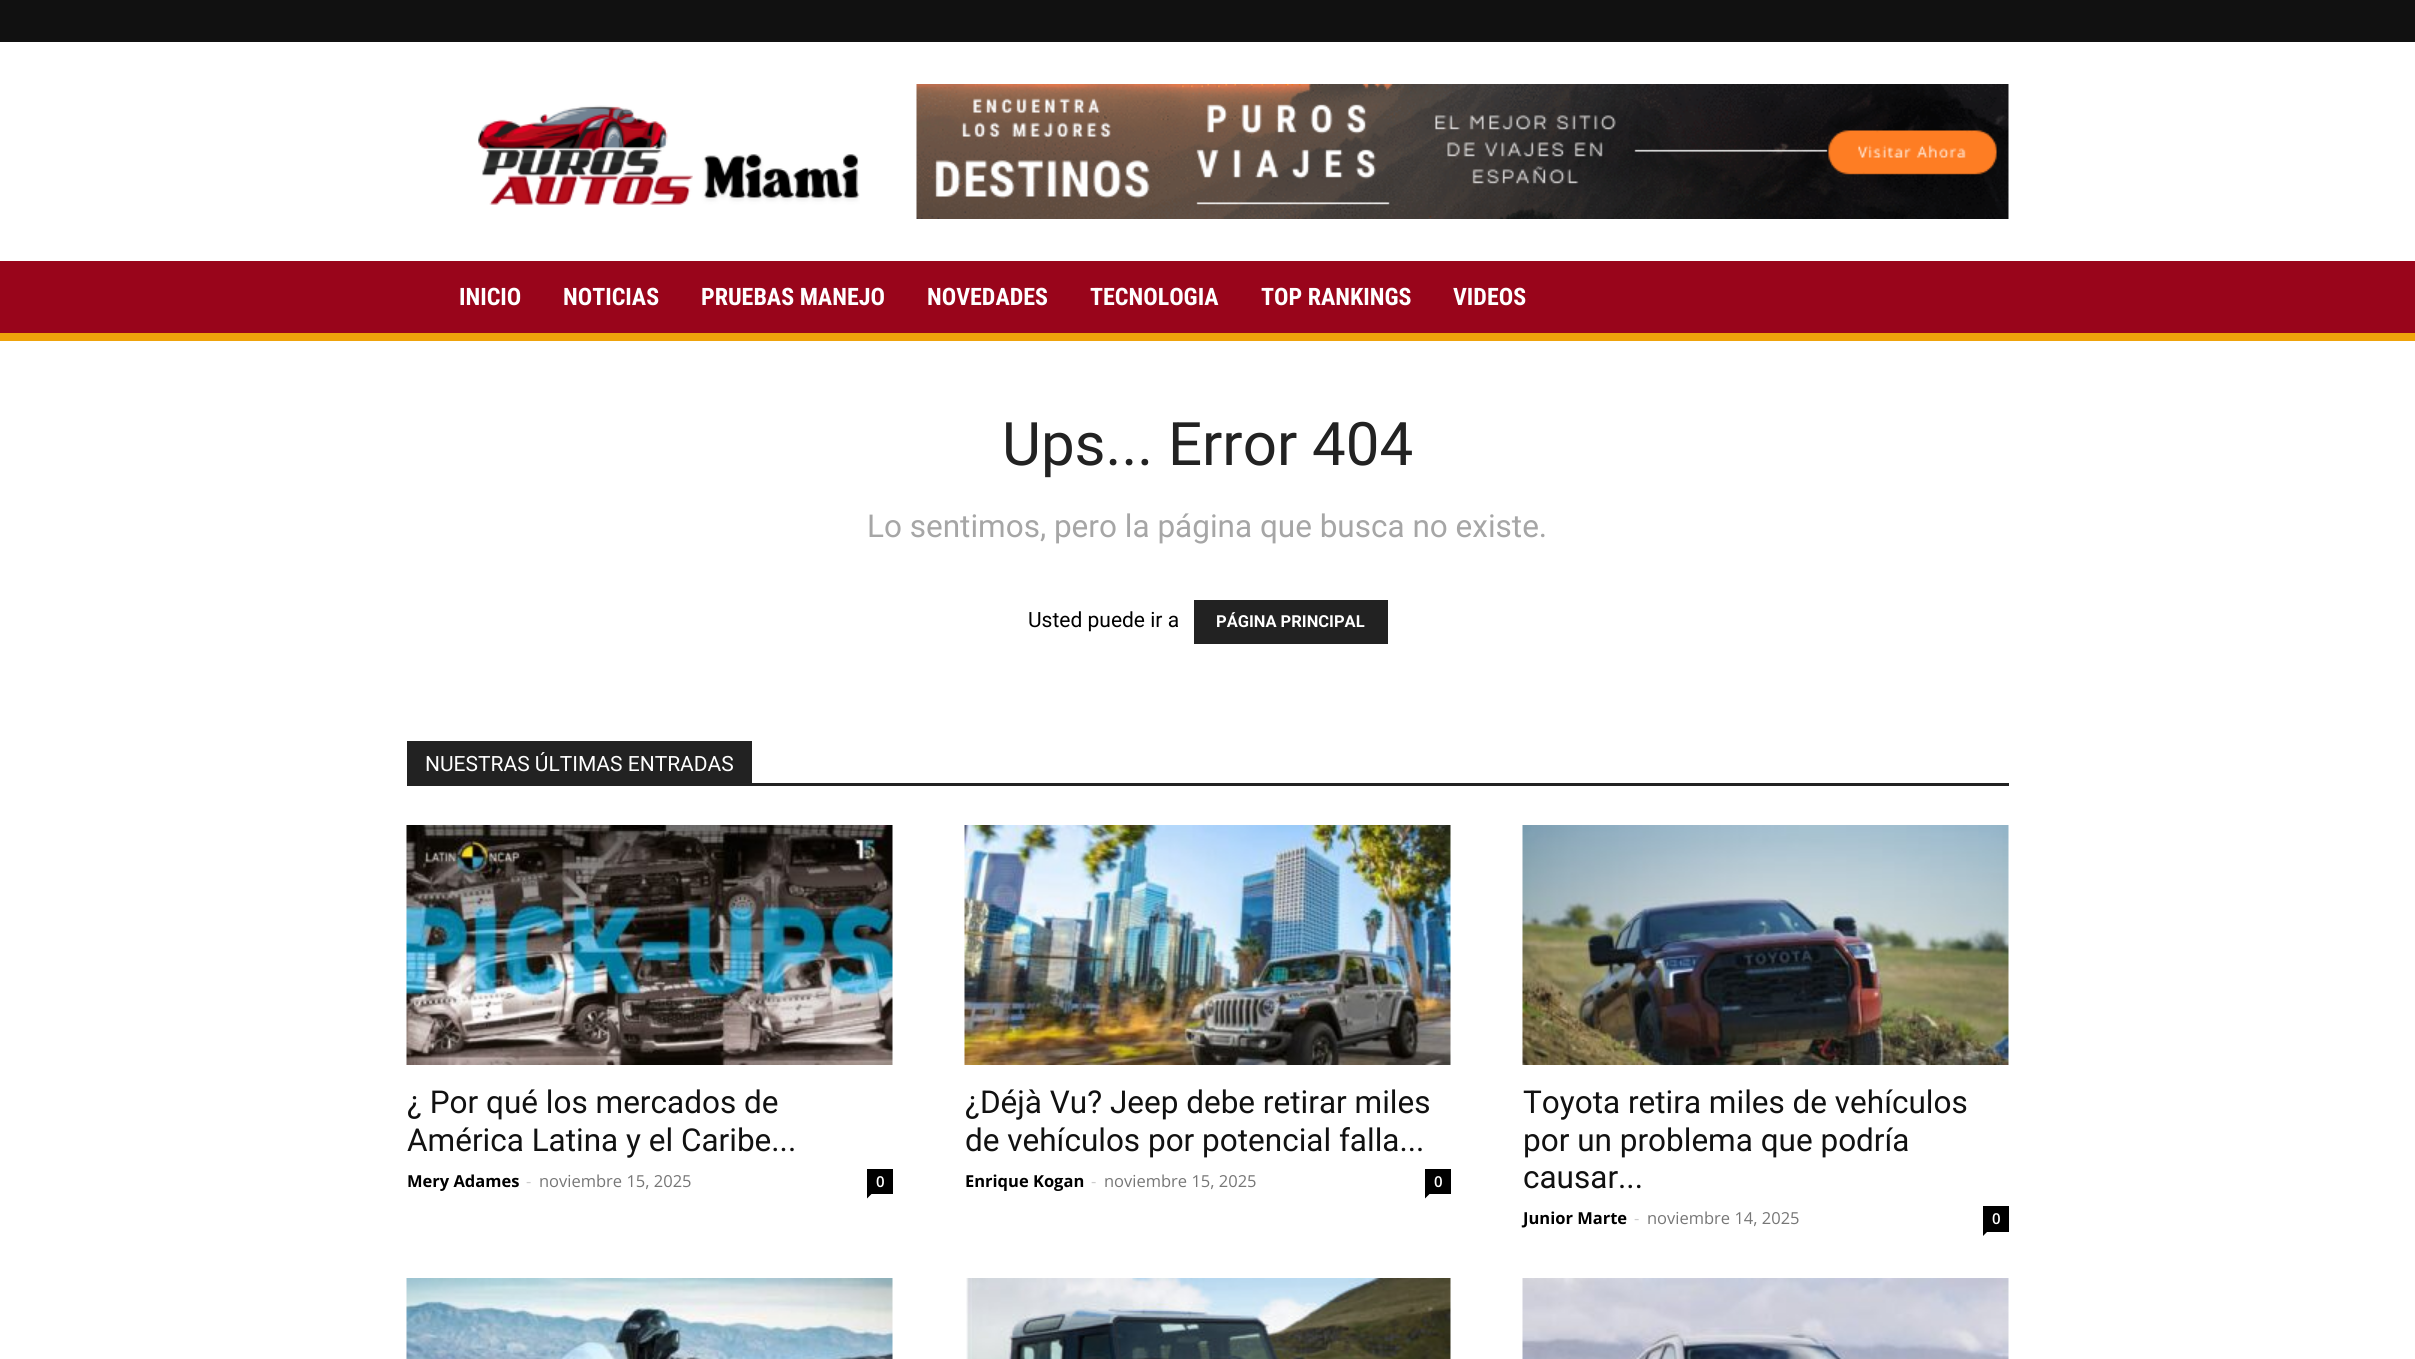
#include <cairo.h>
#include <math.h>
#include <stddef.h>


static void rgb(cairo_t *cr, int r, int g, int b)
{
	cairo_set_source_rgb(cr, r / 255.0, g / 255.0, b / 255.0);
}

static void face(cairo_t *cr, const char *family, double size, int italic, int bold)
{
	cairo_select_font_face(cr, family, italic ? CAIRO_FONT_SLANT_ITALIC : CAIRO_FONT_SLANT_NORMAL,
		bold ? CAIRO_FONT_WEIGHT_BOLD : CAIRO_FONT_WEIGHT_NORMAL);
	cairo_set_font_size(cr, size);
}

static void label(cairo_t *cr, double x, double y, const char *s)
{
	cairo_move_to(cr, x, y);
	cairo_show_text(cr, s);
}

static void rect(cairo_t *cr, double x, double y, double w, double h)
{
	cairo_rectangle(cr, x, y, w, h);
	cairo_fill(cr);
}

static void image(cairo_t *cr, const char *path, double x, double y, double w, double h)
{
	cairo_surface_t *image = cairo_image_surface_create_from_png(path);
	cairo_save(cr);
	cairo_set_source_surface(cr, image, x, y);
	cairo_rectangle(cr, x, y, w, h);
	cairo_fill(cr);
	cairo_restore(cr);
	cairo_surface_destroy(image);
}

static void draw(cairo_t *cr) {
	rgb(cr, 255, 255, 255);
	cairo_paint(cr);
	rgb(cr, 17, 17, 17);
	rect(cr, 0, 0, 2415, 42);
	image(cr, "image0.png", 478, 105, 382, 100);
	image(cr, "image1.png", 916, 84, 1093, 135);
	rgb(cr, 153, 5, 27);
	rect(cr, 0, 261, 2415, 72);
	rgb(cr, 239, 163, 11);
	rect(cr, 0, 333, 2415, 8);
	face(cr, "Roboto Condensed", 24, 0, 1);
	rgb(cr, 255, 255, 255);
	label(cr, 459, 305, "INICIO");
	label(cr, 563, 305, "NOTICIAS");
	label(cr, 701, 305, "PRUEBAS MANEJO");
	label(cr, 927, 305, "NOVEDADES");
	label(cr, 1090, 305, "TECNOLOGIA");
	label(cr, 1261, 305, "TOP RANKINGS");
	label(cr, 1453, 305, "VIDEOS");
	face(cr, "Roboto", 60, 0, 0);
	rgb(cr, 34, 34, 34);
	label(cr, 1002, 465, "Ups... Error 404");
	face(cr, "Roboto", 31.5, 0, 0);
	rgb(cr, 166, 166, 166);
	label(cr, 867, 537, "Lo sentimos, pero la página que busca no existe.");
	face(cr, "Roboto", 21, 0, 0);
	rgb(cr, 0, 0, 0);
	label(cr, 1028, 627, "Usted puede ir a");
	rgb(cr, 34, 34, 34);
	rect(cr, 1194, 600, 194, 44);
	face(cr, "Roboto", 16.5, 0, 1);
	rgb(cr, 255, 255, 255);
	label(cr, 1216, 627, "PÁGINA PRINCIPAL");
	rgb(cr, 34, 34, 34);
	rect(cr, 407, 783, 1602, 3);
	rect(cr, 407, 741, 345, 42);
	face(cr, "Roboto", 21, 0, 0);
	rgb(cr, 255, 255, 255);
	label(cr, 425, 771, "NUESTRAS ÚLTIMAS ENTRADAS");
	image(cr, "image2.png", 406, 825, 487, 240);
	face(cr, "Roboto", 31.5, 0, 0);
	rgb(cr, 17, 17, 17);
	label(cr, 407, 1113, "¿ Por qué los mercados de");
	label(cr, 407, 1151, "América Latina y el Caribe...");
	face(cr, "Open Sans", 16.5, 0, 1);
	rgb(cr, 0, 0, 0);
	label(cr, 407, 1187, "Mery Adames");
	face(cr, "Open Sans", 16.5, 0, 0);
	rgb(cr, 204, 204, 204);
	label(cr, 526, 1187, "-");
	rgb(cr, 118, 118, 118);
	label(cr, 539, 1187, "noviembre 15, 2025");
	rgb(cr, 0, 0, 0);
	rect(cr, 867, 1169, 26, 25);
	face(cr, "Open Sans SemiBold", 15, 0, 0);
	rgb(cr, 255, 255, 255);
	label(cr, 876, 1187, "0");
	rgb(cr, 0, 0, 0);
	cairo_new_path(cr);
	cairo_move_to(cr, 867, 1194);
	cairo_line_to(cr, 871.5, 1194);
	cairo_line_to(cr, 867, 1198.5);
	cairo_close_path(cr);
	cairo_fill(cr);
	image(cr, "image3.png", 964, 825, 487, 240);
	face(cr, "Roboto", 31.5, 0, 0);
	rgb(cr, 17, 17, 17);
	label(cr, 965, 1113, "¿Déjà Vu? Jeep debe retirar miles");
	label(cr, 965, 1151, "de vehículos por potencial falla...");
	face(cr, "Open Sans", 16.5, 0, 1);
	rgb(cr, 0, 0, 0);
	label(cr, 965, 1187, "Enrique Kogan");
	face(cr, "Open Sans", 16.5, 0, 0);
	rgb(cr, 204, 204, 204);
	label(cr, 1091, 1187, "-");
	rgb(cr, 118, 118, 118);
	label(cr, 1104, 1187, "noviembre 15, 2025");
	rgb(cr, 0, 0, 0);
	rect(cr, 1425, 1169, 26, 25);
	face(cr, "Open Sans SemiBold", 15, 0, 0);
	rgb(cr, 255, 255, 255);
	label(cr, 1434, 1187, "0");
	rgb(cr, 0, 0, 0);
	cairo_new_path(cr);
	cairo_move_to(cr, 1425, 1194);
	cairo_line_to(cr, 1429.5, 1194);
	cairo_line_to(cr, 1425, 1198.5);
	cairo_close_path(cr);
	cairo_fill(cr);
	image(cr, "image4.png", 1522, 825, 487, 240);
	face(cr, "Roboto", 31.5, 0, 0);
	rgb(cr, 17, 17, 17);
	label(cr, 1523, 1113, "Toyota retira miles de vehículos");
	label(cr, 1523, 1151, "por un problema que podría");
	label(cr, 1523, 1188, "causar...");
	face(cr, "Open Sans", 16.5, 0, 1);
	rgb(cr, 0, 0, 0);
	label(cr, 1523, 1224, "Junior Marte");
	face(cr, "Open Sans", 16.5, 0, 0);
	rgb(cr, 204, 204, 204);
	label(cr, 1634, 1224, "-");
	rgb(cr, 118, 118, 118);
	label(cr, 1647, 1224, "noviembre 14, 2025");
	rgb(cr, 0, 0, 0);
	rect(cr, 1983, 1206, 26, 26);
	face(cr, "Open Sans SemiBold", 15, 0, 0);
	rgb(cr, 255, 255, 255);
	label(cr, 1992, 1224, "0");
	rgb(cr, 0, 0, 0);
	cairo_new_path(cr);
	cairo_move_to(cr, 1983, 1231.5);
	cairo_line_to(cr, 1987.5, 1231.5);
	cairo_line_to(cr, 1983, 1236);
	cairo_close_path(cr);
	cairo_fill(cr);
	image(cr, "image5.png", 406, 1278, 487, 81);
	image(cr, "image6.png", 966, 1278, 485, 81);
	image(cr, "image7.png", 1522, 1278, 487, 81);
}

int main(void) {
	cairo_surface_t *surface = cairo_image_surface_create(CAIRO_FORMAT_RGB24, 2415, 1359);
	cairo_t *cr = cairo_create(surface);
	cairo_font_options_t *options = cairo_font_options_create();
	cairo_font_options_set_hint_metrics(options, CAIRO_HINT_METRICS_OFF);
	cairo_font_options_set_hint_style(options, CAIRO_HINT_STYLE_NONE);
	cairo_set_font_options(cr, options);
	cairo_set_miter_limit(cr, 4);
	draw(cr);
	cairo_surface_write_to_png(surface, "render.png");
	cairo_font_options_destroy(options);
	cairo_destroy(cr);
	cairo_surface_destroy(surface);
	return 0;
}
